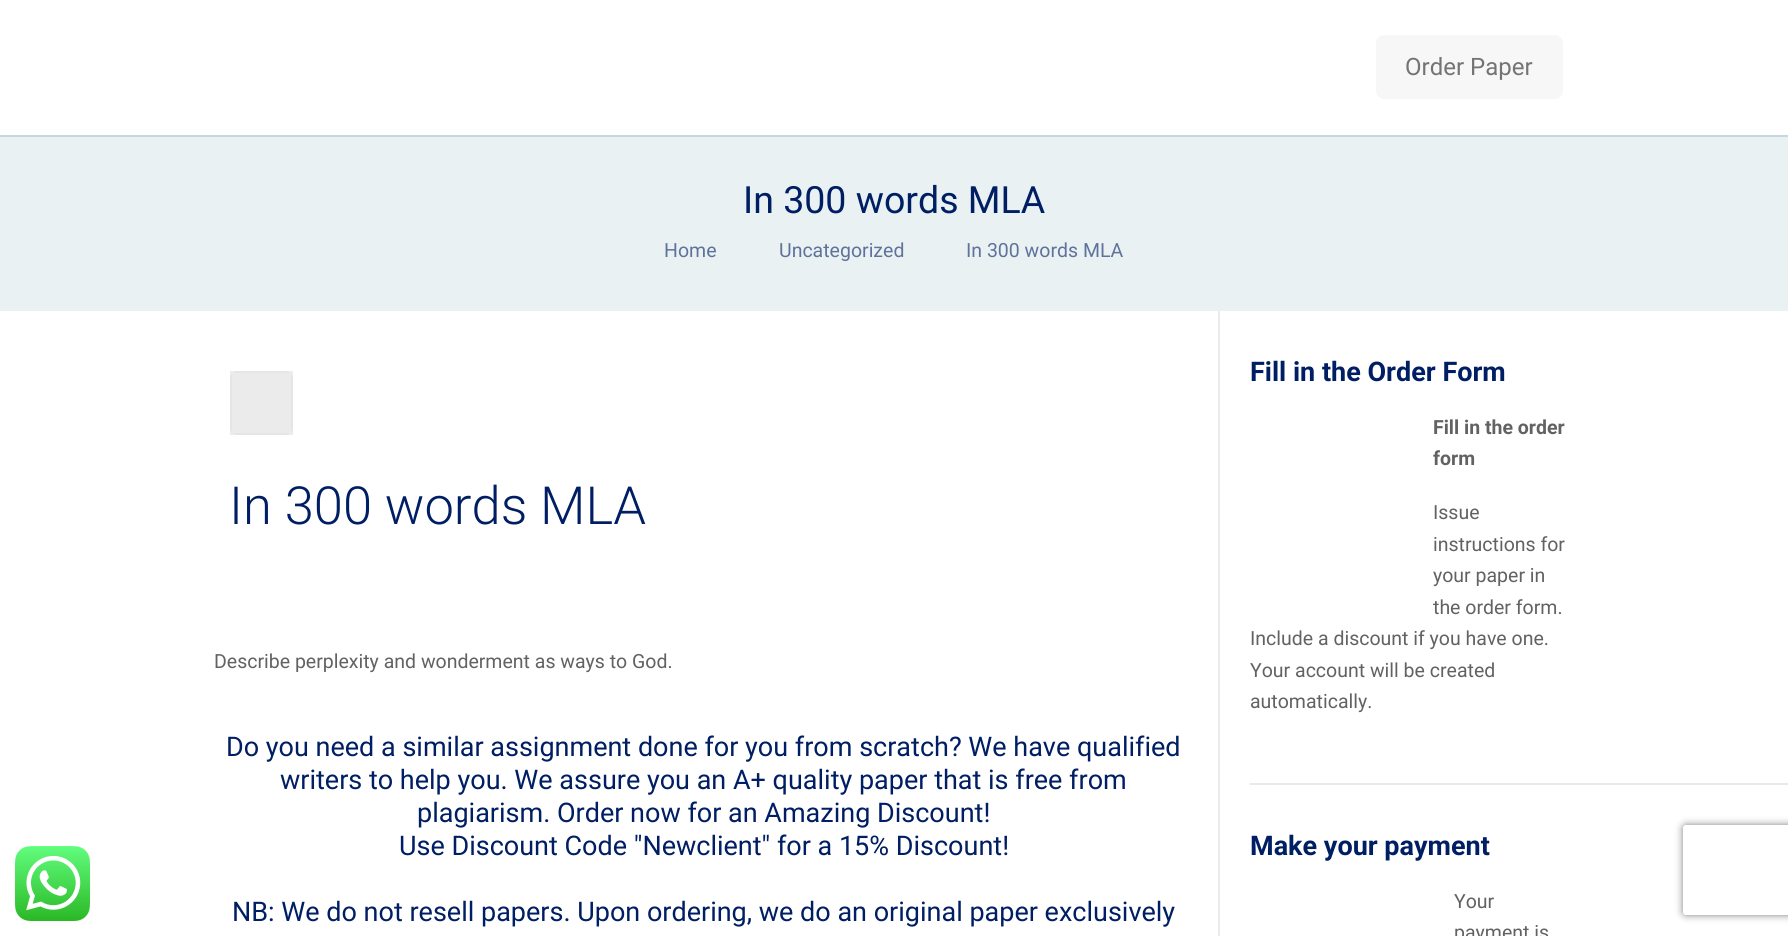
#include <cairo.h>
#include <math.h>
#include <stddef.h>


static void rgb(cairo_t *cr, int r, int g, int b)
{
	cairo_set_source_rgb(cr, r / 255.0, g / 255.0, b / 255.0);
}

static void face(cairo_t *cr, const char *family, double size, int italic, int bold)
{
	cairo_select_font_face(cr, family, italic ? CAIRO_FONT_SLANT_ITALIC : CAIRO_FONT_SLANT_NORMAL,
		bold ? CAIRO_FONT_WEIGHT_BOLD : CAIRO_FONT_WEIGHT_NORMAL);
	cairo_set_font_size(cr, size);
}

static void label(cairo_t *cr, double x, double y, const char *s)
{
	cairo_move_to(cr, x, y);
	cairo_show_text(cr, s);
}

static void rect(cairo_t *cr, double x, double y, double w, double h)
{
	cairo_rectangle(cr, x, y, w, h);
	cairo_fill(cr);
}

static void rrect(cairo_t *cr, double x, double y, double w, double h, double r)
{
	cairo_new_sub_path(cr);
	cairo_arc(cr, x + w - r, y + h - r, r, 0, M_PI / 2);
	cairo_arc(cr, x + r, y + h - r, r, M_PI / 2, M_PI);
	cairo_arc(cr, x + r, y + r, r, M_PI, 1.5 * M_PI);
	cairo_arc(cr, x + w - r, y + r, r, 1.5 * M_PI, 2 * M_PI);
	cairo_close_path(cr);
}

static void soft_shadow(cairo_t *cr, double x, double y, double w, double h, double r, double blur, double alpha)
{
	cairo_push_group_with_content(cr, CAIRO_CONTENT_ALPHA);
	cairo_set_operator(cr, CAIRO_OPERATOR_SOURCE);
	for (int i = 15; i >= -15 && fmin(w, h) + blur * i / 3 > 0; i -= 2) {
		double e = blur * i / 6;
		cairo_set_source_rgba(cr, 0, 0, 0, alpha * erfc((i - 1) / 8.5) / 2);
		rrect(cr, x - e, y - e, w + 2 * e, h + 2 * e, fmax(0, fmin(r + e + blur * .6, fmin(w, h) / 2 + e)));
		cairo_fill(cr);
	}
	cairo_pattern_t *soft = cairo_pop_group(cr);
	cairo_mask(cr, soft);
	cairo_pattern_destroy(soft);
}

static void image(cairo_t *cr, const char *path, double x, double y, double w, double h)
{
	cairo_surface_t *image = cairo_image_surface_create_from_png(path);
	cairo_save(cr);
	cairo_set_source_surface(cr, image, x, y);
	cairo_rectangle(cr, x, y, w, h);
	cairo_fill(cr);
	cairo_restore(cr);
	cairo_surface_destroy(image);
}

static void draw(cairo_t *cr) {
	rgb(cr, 255, 255, 255);
	cairo_paint(cr);
	image(cr, "image0.png", 15, 846, 75, 75);
	rgb(cr, 195, 216, 224);
	rect(cr, 0, 135, 1788, 2);
	rgb(cr, 247, 247, 247);
	rrect(cr, 1376, 35, 187, 64, 8);
	cairo_fill(cr);
	face(cr, "Roboto", 24, 0, 0);
	rgb(cr, 116, 116, 116);
	label(cr, 1405, 75, "Order Paper");
	rgb(cr, 234, 241, 242);
	rect(cr, 0, 137, 1788, 174);
	face(cr, "Roboto", 37.5, 0, 0);
	rgb(cr, 0, 30, 99);
	label(cr, 743, 213, "In 300 words MLA");
	face(cr, "Roboto", 19.5, 0, 0);
	rgb(cr, 94, 114, 156);
	label(cr, 664, 257, "Home");
	label(cr, 779, 257, "Uncategorized");
	label(cr, 966, 257, "In 300 words MLA");
	rgb(cr, 247, 247, 247);
	rrect(cr, 230, 371, 63, 64, 8);
	cairo_fill(cr);
	cairo_rectangle(cr, 231, 372, 61, 62);
	cairo_set_source_rgba(cr, 0, 0, 0, 0.03);
	cairo_stroke(cr);
	cairo_set_source_rgba(cr, 0, 0, 0, 0.05);
	rect(cr, 230, 371, 63, 64);
	face(cr, "Roboto Light", 52.5, 0, 0);
	rgb(cr, 0, 30, 99);
	label(cr, 229, 524, "In 300 words MLA");
	face(cr, "Roboto", 19.5, 0, 0);
	rgb(cr, 98, 98, 98);
	label(cr, 214, 668, "Describe perplexity and wonderment as ways to God.");
	face(cr, "Roboto", 27, 0, 0);
	rgb(cr, 0, 30, 99);
	label(cr, 226, 756, "Do you need a similar assignment done for you from scratch? We have qualified");
	label(cr, 280, 789, "writers to help you. We assure you an A+ quality paper that is free from");
	label(cr, 417, 822, "plagiarism. Order now for an Amazing Discount!");
	label(cr, 399, 855, "Use Discount Code \"Newclient\" for a 15% Discount!");
	label(cr, 232, 921, "NB: We do not resell papers. Upon ordering, we do an original paper exclusively");
	rgb(cr, 235, 235, 235);
	rect(cr, 1218, 311, 2, 625);
	face(cr, "Roboto", 27, 0, 1);
	rgb(cr, 0, 30, 99);
	label(cr, 1250, 381, "Fill in the Order Form");
	face(cr, "Roboto", 19.5, 0, 1);
	rgb(cr, 98, 98, 98);
	label(cr, 1433, 434, "Fill in the order");
	label(cr, 1433, 465, "form");
	face(cr, "Roboto", 19.5, 0, 0);
	label(cr, 1433, 519, "Issue");
	label(cr, 1433, 551, "instructions for");
	label(cr, 1433, 582, "your paper in");
	label(cr, 1433, 614, "the order form.");
	label(cr, 1250, 645, "Include a discount if you have one.");
	label(cr, 1250, 677, "Your account will be created");
	label(cr, 1250, 708, "automatically.");
	rgb(cr, 233, 233, 233);
	rect(cr, 1250, 783, 538, 2);
	face(cr, "Roboto", 27, 0, 1);
	rgb(cr, 0, 30, 99);
	label(cr, 1250, 855, "Make your payment");
	face(cr, "Roboto", 19.5, 0, 0);
	rgb(cr, 98, 98, 98);
	label(cr, 1454, 908, "Your");
	label(cr, 1454, 939, "payment is");
	cairo_save(cr);
	cairo_set_fill_rule(cr, CAIRO_FILL_RULE_EVEN_ODD);
	cairo_new_path(cr);
	cairo_move_to(cr, 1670, 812);
	cairo_line_to(cr, 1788, 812);
	cairo_line_to(cr, 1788, 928);
	cairo_line_to(cr, 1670, 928);
	cairo_close_path(cr);
	cairo_move_to(cr, 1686, 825);
	cairo_line_to(cr, 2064, 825);
	cairo_curve_to(cr, 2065.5, 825, 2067, 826.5, 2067, 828);
	cairo_line_to(cr, 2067, 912);
	cairo_curve_to(cr, 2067, 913.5, 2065.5, 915, 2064, 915);
	cairo_line_to(cr, 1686, 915);
	cairo_curve_to(cr, 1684.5, 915, 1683, 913.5, 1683, 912);
	cairo_line_to(cr, 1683, 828);
	cairo_curve_to(cr, 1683, 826.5, 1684.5, 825, 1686, 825);
	cairo_close_path(cr);
	cairo_clip(cr);
	rgb(cr, 128, 128, 128);
	soft_shadow(cr, 1683, 825, 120, 90, 3, 4, 1);
	cairo_restore(cr);
}

int main(void) {
	cairo_surface_t *surface = cairo_image_surface_create(CAIRO_FORMAT_RGB24, 1788, 936);
	cairo_t *cr = cairo_create(surface);
	cairo_font_options_t *options = cairo_font_options_create();
	cairo_font_options_set_hint_metrics(options, CAIRO_HINT_METRICS_OFF);
	cairo_font_options_set_hint_style(options, CAIRO_HINT_STYLE_NONE);
	cairo_set_font_options(cr, options);
	cairo_set_miter_limit(cr, 4);
	draw(cr);
	cairo_surface_write_to_png(surface, "render.png");
	cairo_font_options_destroy(options);
	cairo_destroy(cr);
	cairo_surface_destroy(surface);
	return 0;
}
